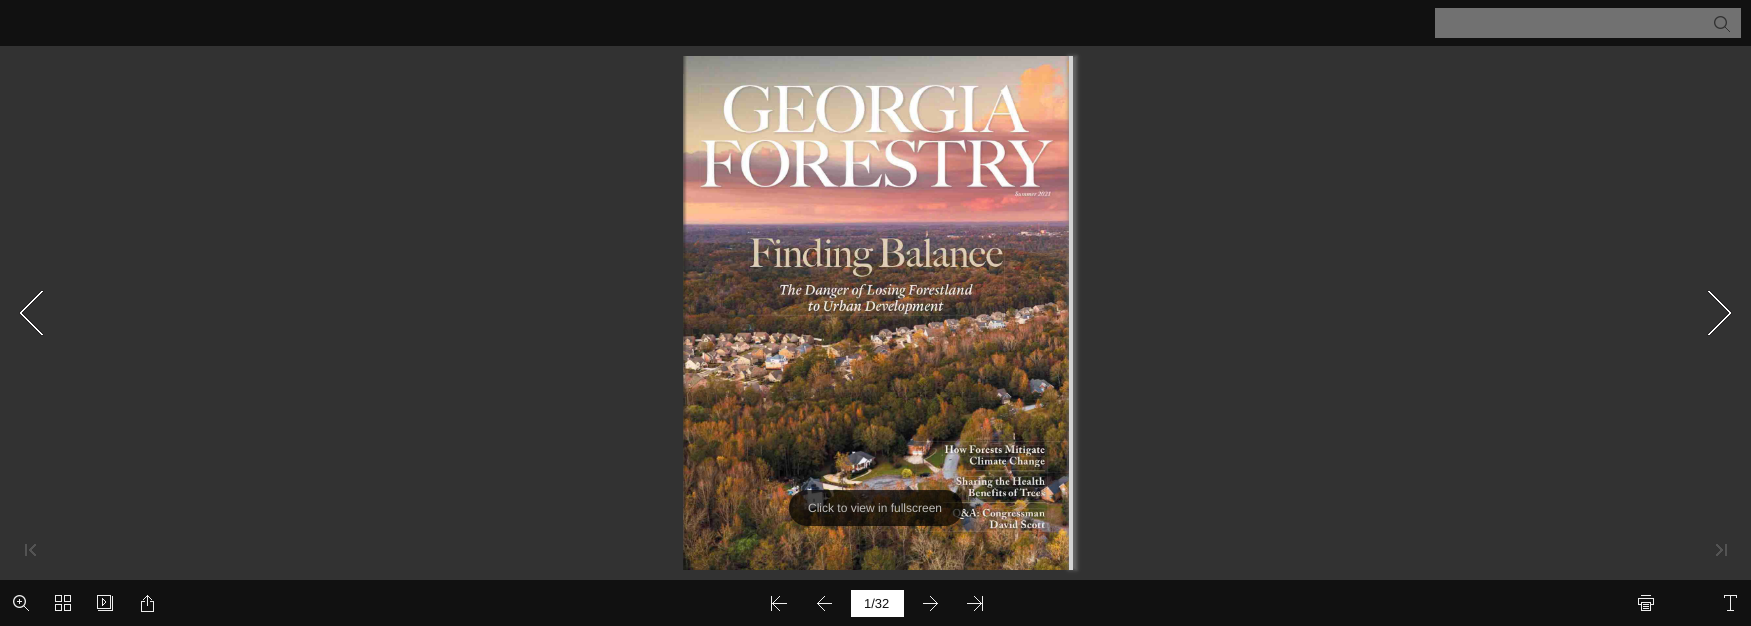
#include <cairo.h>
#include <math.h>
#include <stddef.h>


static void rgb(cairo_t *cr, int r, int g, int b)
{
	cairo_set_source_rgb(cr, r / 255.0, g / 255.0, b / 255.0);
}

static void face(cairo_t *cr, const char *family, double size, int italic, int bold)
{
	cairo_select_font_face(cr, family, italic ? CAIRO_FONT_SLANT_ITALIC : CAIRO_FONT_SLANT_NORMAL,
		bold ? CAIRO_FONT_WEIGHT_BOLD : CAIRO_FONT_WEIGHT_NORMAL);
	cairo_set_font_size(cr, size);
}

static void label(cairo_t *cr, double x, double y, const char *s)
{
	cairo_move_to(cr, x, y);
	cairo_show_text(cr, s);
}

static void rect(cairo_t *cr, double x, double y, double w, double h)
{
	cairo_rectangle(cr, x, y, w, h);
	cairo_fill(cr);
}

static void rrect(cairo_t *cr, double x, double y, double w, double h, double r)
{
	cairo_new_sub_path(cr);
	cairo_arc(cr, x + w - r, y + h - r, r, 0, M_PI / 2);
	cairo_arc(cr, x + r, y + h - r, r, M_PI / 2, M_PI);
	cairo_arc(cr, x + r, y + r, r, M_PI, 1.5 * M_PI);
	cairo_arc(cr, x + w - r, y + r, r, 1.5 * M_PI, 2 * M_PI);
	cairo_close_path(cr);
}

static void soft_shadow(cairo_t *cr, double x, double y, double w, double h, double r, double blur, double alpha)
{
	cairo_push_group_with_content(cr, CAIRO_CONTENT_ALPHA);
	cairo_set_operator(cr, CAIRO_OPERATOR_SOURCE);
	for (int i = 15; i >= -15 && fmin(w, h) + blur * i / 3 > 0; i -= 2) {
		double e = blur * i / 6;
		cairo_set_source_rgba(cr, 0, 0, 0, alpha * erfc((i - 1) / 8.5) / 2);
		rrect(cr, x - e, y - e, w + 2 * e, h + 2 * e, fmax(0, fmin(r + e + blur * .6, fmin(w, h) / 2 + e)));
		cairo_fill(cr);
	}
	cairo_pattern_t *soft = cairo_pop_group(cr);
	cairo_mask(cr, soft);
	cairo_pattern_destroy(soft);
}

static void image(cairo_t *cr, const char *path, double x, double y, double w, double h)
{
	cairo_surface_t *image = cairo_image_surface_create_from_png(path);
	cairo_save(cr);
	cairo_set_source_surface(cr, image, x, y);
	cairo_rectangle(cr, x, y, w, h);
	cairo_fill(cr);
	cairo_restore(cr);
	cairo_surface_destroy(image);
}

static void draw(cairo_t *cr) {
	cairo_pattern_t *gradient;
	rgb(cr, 50, 50, 50);
	cairo_paint(cr);
	rgb(cr, 17, 17, 17);
	rect(cr, 0, 0, 1751, 46);
	rgb(cr, 113, 113, 113);
	rect(cr, 1435, 8, 306, 30);
	image(cr, "image0.png", 1714, 16, 16, 16);
	image(cr, "image1.png", 19, 290, 25, 46);
	image(cr, "image2.png", 1707, 290, 25, 46);
	image(cr, "image4.png", 683, 74, 1, 476);
	image(cr, "image3.png", 683, 56, 386, 514);
	gradient = cairo_pattern_create_linear(683, 313, 687, 313);
	cairo_pattern_add_color_stop_rgba(gradient, 0, 0.078, 0.078, 0.078, 0.5);
	cairo_pattern_add_color_stop_rgba(gradient, 1, 0.078, 0.078, 0.078, 0);
	cairo_set_source(cr, gradient);
	cairo_pattern_destroy(gradient);
	rect(cr, 683, 56, 4, 514);
	rgb(cr, 125, 125, 125);
	soft_shadow(cr, 1068, 56, 9, 514, 0, 2, 0.7);
	rgb(cr, 212, 212, 212);
	rect(cr, 1069, 56, 4, 514);
	cairo_set_source_rgba(cr, 0, 0, 0, 0.7);
	rrect(cr, 789, 490, 174, 36, 18);
	cairo_fill(cr);
	face(cr, "Liberation Sans", 12, 0, 0);
	rgb(cr, 189, 187, 184);
	label(cr, 808, 512, "Click to view in fullscreen");
	image(cr, "image5.png", 25, 544, 11, 12);
	image(cr, "image6.png", 1716, 544, 11, 12);
	rgb(cr, 17, 17, 17);
	rect(cr, 0, 580, 1751, 46);
	image(cr, "image7.png", 13, 595, 16, 16);
	image(cr, "image8.png", 55, 595, 16, 16);
	image(cr, "image9.png", 97, 595, 16, 16);
	image(cr, "image10.png", 141, 595, 13, 17);
	image(cr, "image11.png", 771, 596, 16, 15);
	image(cr, "image12.png", 817, 596, 15, 15);
	rgb(cr, 255, 255, 255);
	rect(cr, 851, 590, 53, 27);
	face(cr, "Liberation Sans", 13, 0, 0);
	rgb(cr, 17, 17, 17);
	label(cr, 864, 608, "1/32");
	image(cr, "image13.png", 923, 596, 15, 15);
	image(cr, "image14.png", 967, 596, 16, 15);
	image(cr, "image15.png", 1638, 595, 16, 16);
	image(cr, "image16.png", 1724, 595, 13, 16);
}

int main(void) {
	cairo_surface_t *surface = cairo_image_surface_create(CAIRO_FORMAT_RGB24, 1751, 626);
	cairo_t *cr = cairo_create(surface);
	cairo_font_options_t *options = cairo_font_options_create();
	cairo_font_options_set_hint_metrics(options, CAIRO_HINT_METRICS_OFF);
	cairo_font_options_set_hint_style(options, CAIRO_HINT_STYLE_NONE);
	cairo_set_font_options(cr, options);
	cairo_set_miter_limit(cr, 4);
	draw(cr);
	cairo_surface_write_to_png(surface, "render.png");
	cairo_font_options_destroy(options);
	cairo_destroy(cr);
	cairo_surface_destroy(surface);
	return 0;
}
